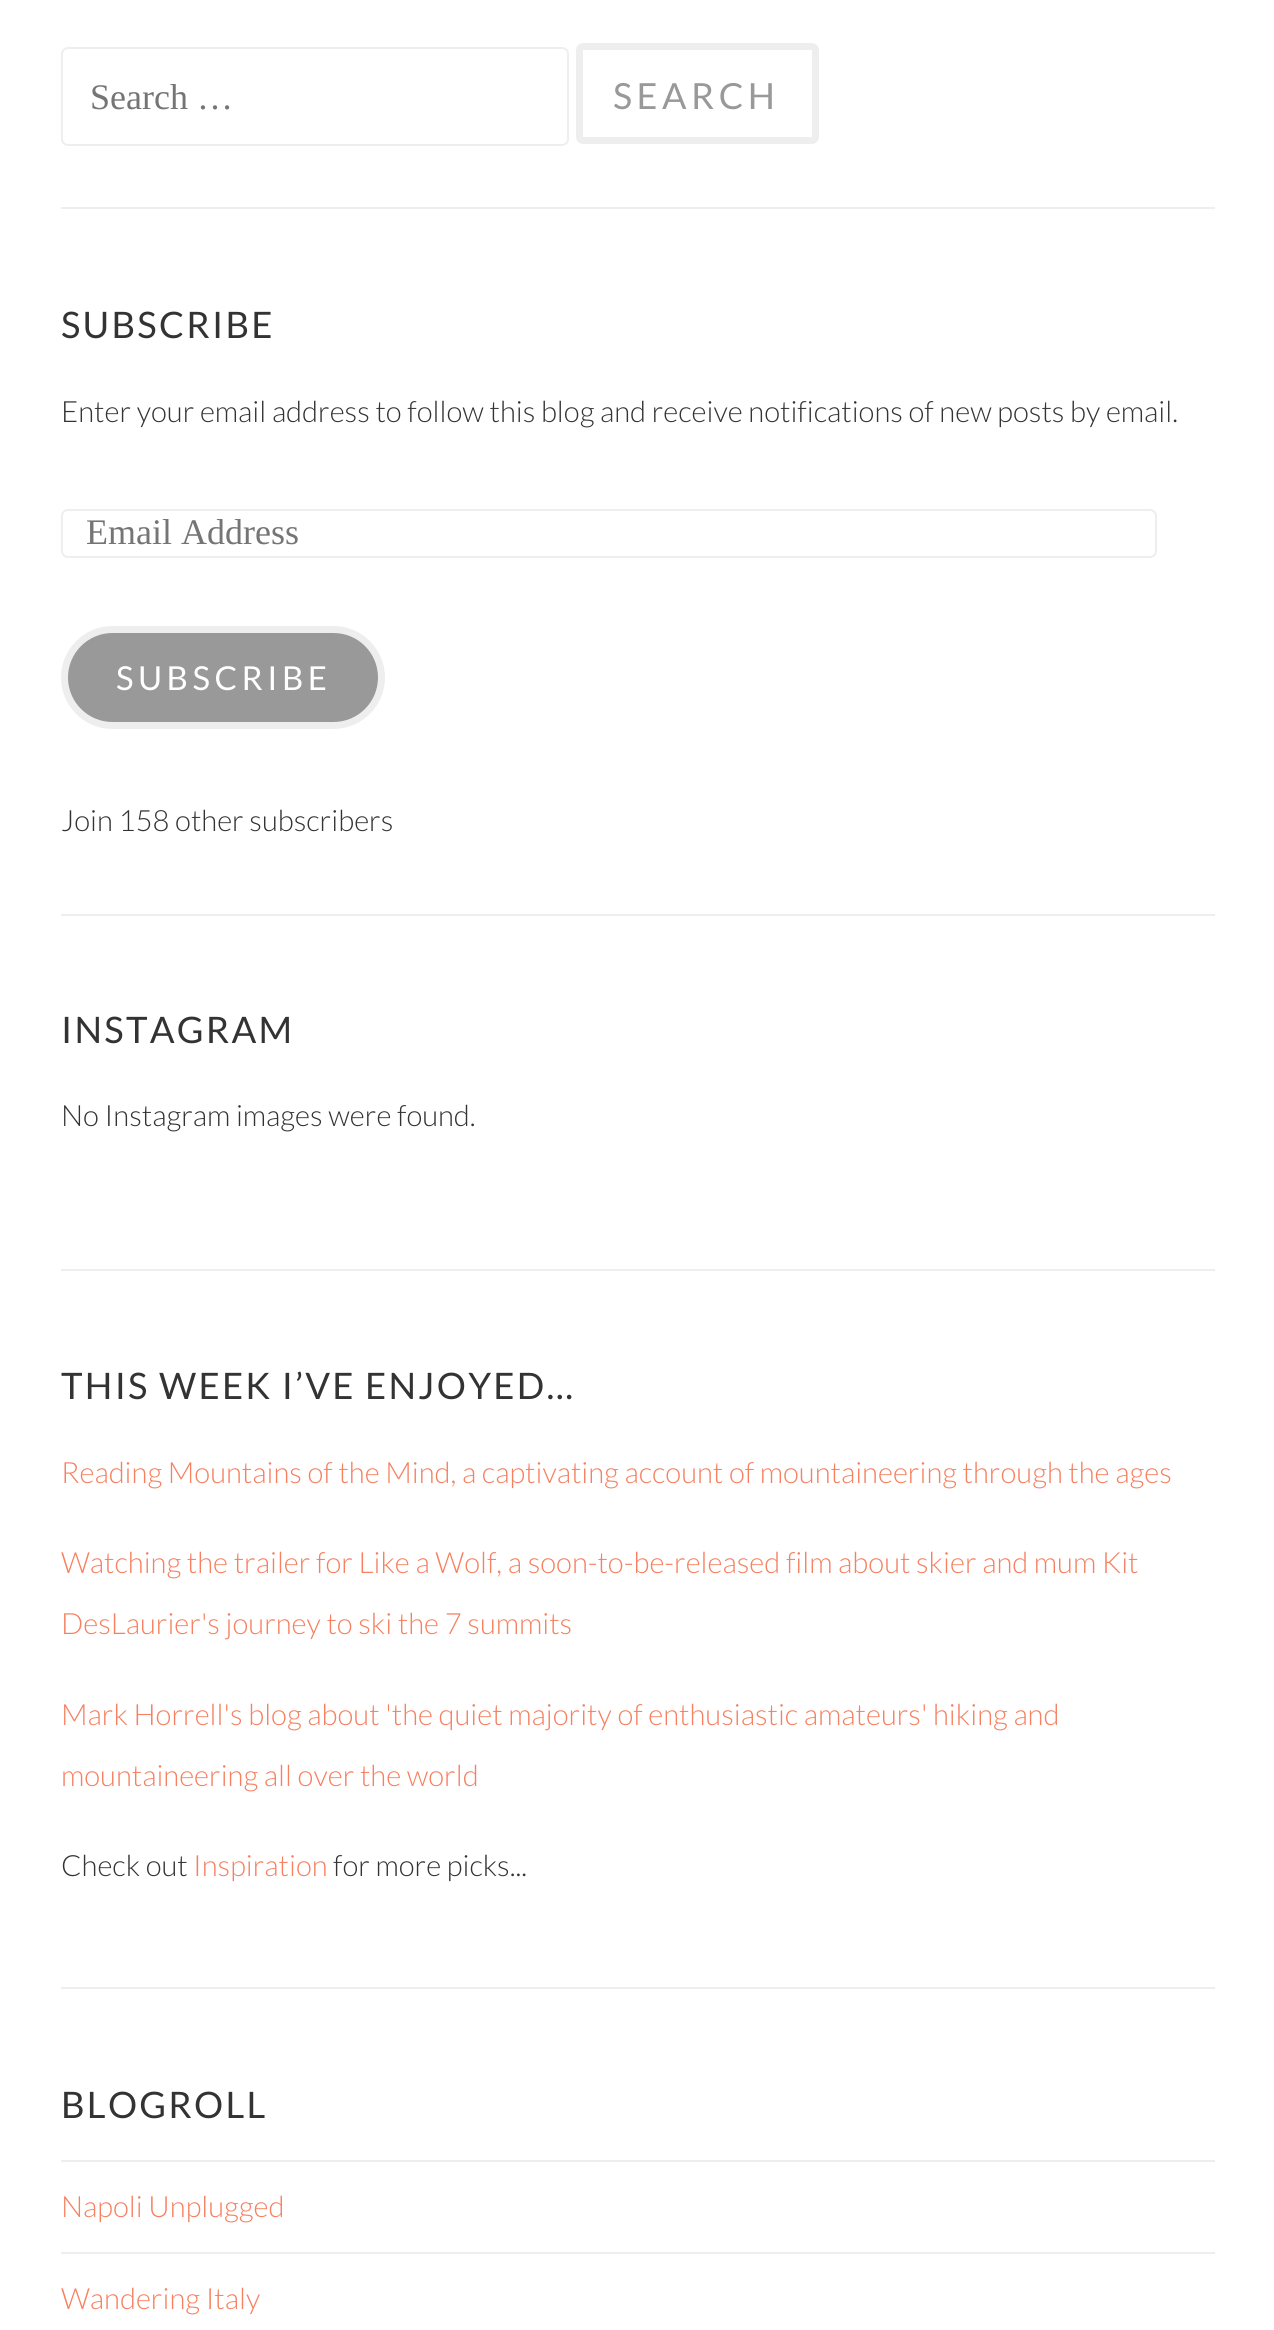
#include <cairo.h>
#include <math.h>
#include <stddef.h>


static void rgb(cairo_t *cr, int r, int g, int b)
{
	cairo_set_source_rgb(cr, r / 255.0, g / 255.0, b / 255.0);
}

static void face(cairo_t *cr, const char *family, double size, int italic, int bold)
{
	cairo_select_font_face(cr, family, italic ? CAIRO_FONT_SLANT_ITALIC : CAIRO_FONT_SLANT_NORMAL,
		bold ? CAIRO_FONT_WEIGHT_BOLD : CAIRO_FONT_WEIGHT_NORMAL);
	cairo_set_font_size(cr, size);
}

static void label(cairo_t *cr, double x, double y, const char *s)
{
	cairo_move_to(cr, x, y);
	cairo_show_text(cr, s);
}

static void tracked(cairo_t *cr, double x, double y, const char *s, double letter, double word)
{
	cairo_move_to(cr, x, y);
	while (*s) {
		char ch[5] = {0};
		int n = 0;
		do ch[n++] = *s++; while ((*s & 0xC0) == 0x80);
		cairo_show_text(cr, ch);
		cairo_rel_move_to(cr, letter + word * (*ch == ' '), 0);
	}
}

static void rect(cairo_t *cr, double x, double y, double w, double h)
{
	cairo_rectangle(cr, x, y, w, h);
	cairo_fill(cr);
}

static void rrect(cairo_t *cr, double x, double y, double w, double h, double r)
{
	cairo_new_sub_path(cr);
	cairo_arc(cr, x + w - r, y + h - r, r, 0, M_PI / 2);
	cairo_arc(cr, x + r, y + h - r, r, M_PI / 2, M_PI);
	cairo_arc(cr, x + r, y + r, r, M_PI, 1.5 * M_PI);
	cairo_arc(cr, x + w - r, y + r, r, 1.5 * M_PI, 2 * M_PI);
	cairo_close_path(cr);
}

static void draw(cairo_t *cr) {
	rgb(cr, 255, 255, 255);
	cairo_paint(cr);
	rgb(cr, 238, 238, 238);
	rect(cr, 61, 207, 1154, 2);
	rrect(cr, 62, 48, 506, 97, 6);
	cairo_stroke(cr);
	face(cr, "Liberation Serif", 36, 0, 0);
	rgb(cr, 117, 117, 117);
	label(cr, 90, 109, "Search …");
	rrect(cr, 579.5, 46.5, 236, 94, 3.5);
	rgb(cr, 238, 238, 238);
	cairo_set_line_width(cr, 7);
	cairo_stroke(cr);
	face(cr, "Lato", 36, 0, 0);
	rgb(cr, 153, 153, 153);
	tracked(cr, 613, 109, "SEARCH", 4.5, 0);
	rgb(cr, 238, 238, 238);
	rect(cr, 61, 914, 1154, 2);
	face(cr, "Lato", 36.5, 0, 0);
	rgb(cr, 51, 51, 51);
	tracked(cr, 61, 338, "SUBSCRIBE", 2.25, 0);
	face(cr, "Lato Light", 29.25, 0, 0);
	label(cr, 61, 422, "Enter your email address to follow this blog and receive notifications of new posts by email.");
	rrect(cr, 62, 510, 1094, 47, 6);
	rgb(cr, 238, 238, 238);
	cairo_set_line_width(cr, 2);
	cairo_stroke(cr);
	face(cr, "Liberation Serif", 36, 0, 0);
	rgb(cr, 117, 117, 117);
	label(cr, 86, 544, "Email Address");
	rgb(cr, 153, 153, 153);
	rrect(cr, 64.5, 629.5, 317, 96, 48);
	cairo_fill_preserve(cr);
	rgb(cr, 238, 238, 238);
	cairo_set_line_width(cr, 7);
	cairo_stroke(cr);
	face(cr, "Lato", 33, 0, 0);
	rgb(cr, 255, 255, 255);
	tracked(cr, 116, 690, "SUBSCRIBE", 4.5, 0);
	face(cr, "Lato Light", 29.25, 0, 0);
	rgb(cr, 51, 51, 51);
	label(cr, 61, 831, "Join 158 other subscribers");
	rgb(cr, 238, 238, 238);
	rect(cr, 61, 1269, 1154, 2);
	face(cr, "Lato", 36.5, 0, 0);
	rgb(cr, 51, 51, 51);
	tracked(cr, 61, 1043, "INSTAGRAM", 2.25, 0);
	face(cr, "Lato Light", 29.25, 0, 0);
	label(cr, 61, 1126, "No Instagram images were found.");
	rgb(cr, 238, 238, 238);
	rect(cr, 61, 1987, 1154, 2);
	face(cr, "Lato", 36.5, 0, 0);
	rgb(cr, 51, 51, 51);
	tracked(cr, 61, 1399, "THIS WEEK I’VE ENJOYED…", 2.25, 0);
	face(cr, "Lato Light", 29.25, 0, 0);
	rgb(cr, 246, 128, 96);
	label(cr, 61, 1483, "Reading Mountains of the Mind, a captivating account of mountaineering through the ages");
	label(cr, 61, 1573, "Watching the trailer for Like a Wolf, a soon-to-be-released film about skier and mum Kit");
	label(cr, 61, 1634, "DesLaurier's journey to ski the 7 summits");
	label(cr, 61, 1725, "Mark Horrell's blog about 'the quiet majority of enthusiastic amateurs' hiking and");
	label(cr, 61, 1786, "mountaineering all over the world");
	rgb(cr, 51, 51, 51);
	label(cr, 61, 1876, "Check out");
	rgb(cr, 246, 128, 96);
	label(cr, 193, 1876, "Inspiration");
	rgb(cr, 51, 51, 51);
	label(cr, 333, 1876, "for more picks...");
	face(cr, "Lato", 36.5, 0, 0);
	tracked(cr, 61, 2118, "BLOGROLL", 2.25, 0);
	rgb(cr, 238, 238, 238);
	rect(cr, 61, 2160, 1154, 2);
	face(cr, "Lato Light", 29.25, 0, 0);
	rgb(cr, 246, 128, 96);
	label(cr, 61, 2217, "Napoli Unplugged");
	rgb(cr, 238, 238, 238);
	rect(cr, 61, 2252, 1154, 2);
	rgb(cr, 246, 128, 96);
	label(cr, 61, 2309, "Wandering Italy");
}

int main(void) {
	cairo_surface_t *surface = cairo_image_surface_create(CAIRO_FORMAT_RGB24, 1274, 2330);
	cairo_t *cr = cairo_create(surface);
	cairo_font_options_t *options = cairo_font_options_create();
	cairo_font_options_set_hint_metrics(options, CAIRO_HINT_METRICS_OFF);
	cairo_font_options_set_hint_style(options, CAIRO_HINT_STYLE_NONE);
	cairo_set_font_options(cr, options);
	cairo_set_miter_limit(cr, 4);
	draw(cr);
	cairo_surface_write_to_png(surface, "render.png");
	cairo_font_options_destroy(options);
	cairo_destroy(cr);
	cairo_surface_destroy(surface);
	return 0;
}
